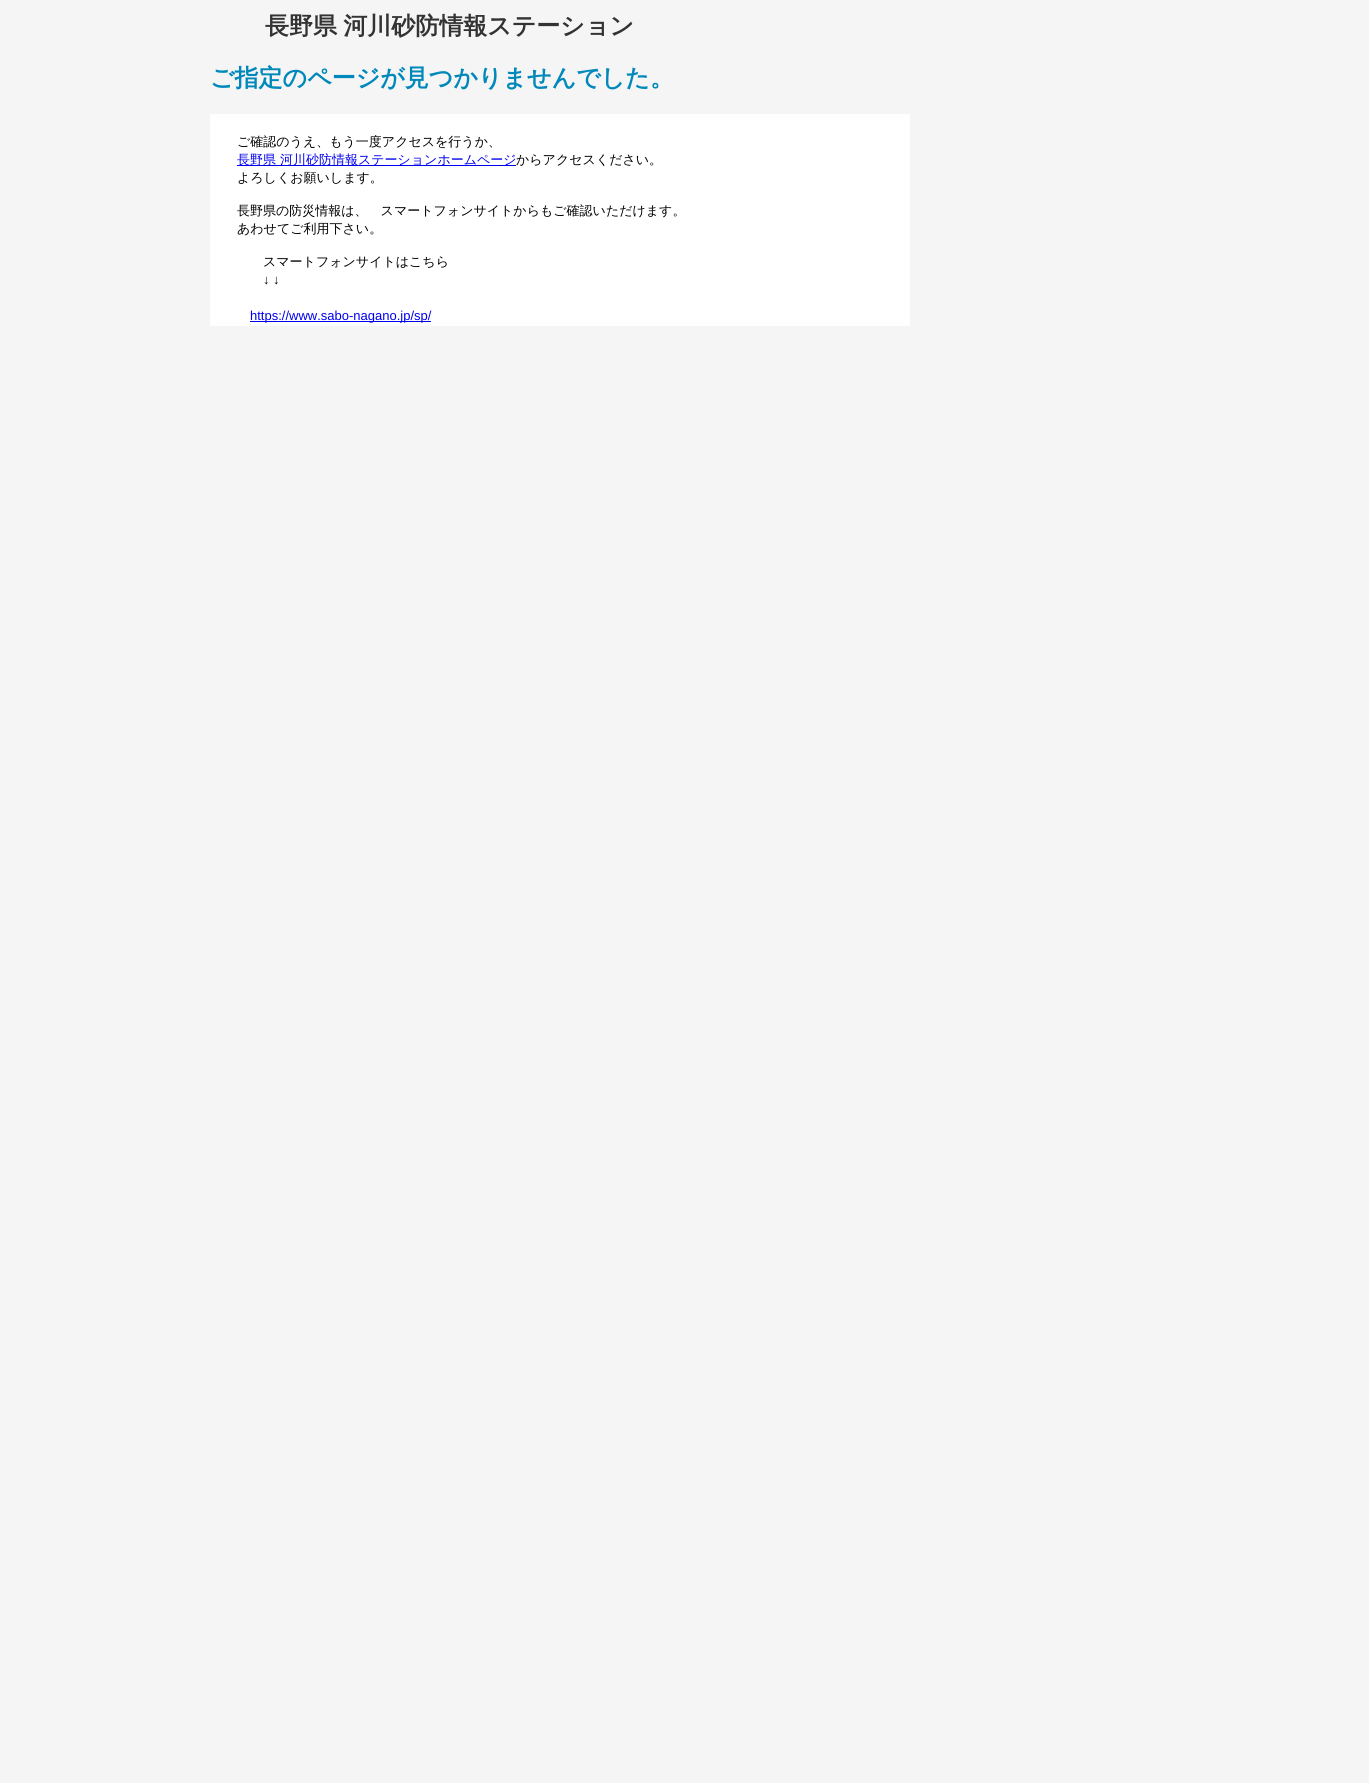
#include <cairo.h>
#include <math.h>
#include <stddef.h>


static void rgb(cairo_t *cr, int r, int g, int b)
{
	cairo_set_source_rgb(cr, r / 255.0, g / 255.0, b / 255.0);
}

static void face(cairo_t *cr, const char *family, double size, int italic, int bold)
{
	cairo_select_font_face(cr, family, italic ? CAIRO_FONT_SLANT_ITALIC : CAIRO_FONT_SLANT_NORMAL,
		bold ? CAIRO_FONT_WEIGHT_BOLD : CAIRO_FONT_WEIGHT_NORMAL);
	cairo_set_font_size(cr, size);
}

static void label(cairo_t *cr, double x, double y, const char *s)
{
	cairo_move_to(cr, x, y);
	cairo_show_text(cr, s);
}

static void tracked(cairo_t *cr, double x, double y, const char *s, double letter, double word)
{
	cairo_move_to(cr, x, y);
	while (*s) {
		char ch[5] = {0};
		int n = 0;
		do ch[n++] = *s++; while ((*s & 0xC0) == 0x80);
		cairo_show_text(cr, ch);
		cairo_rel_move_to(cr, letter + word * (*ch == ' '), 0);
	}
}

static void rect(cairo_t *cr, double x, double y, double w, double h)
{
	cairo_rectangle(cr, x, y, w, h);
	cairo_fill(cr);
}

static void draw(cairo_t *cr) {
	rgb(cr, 245, 245, 245);
	cairo_paint(cr);
	face(cr, "WenQuanYi Zen Hei", 24, 0, 1);
	rgb(cr, 51, 51, 51);
	tracked(cr, 265, 34, "長野県 河川砂防情報ステーション", 0, -1);
	rgb(cr, 0, 136, 187);
	label(cr, 210, 86, "ご指定のページが見つかりませんでした。");
	rgb(cr, 255, 255, 255);
	rect(cr, 210, 114, 700, 212);
	face(cr, "WenQuanYi Zen Hei Medium", 13, 0, 0);
	rgb(cr, 0, 0, 0);
	label(cr, 237, 146, "ご確認のうえ、もう一度アクセスを行うか、");
	rgb(cr, 0, 0, 238);
	rect(cr, 237, 165, 279, 1);
	label(cr, 237, 164, "長野県 河川砂防情報ステーションホームページ");
	rgb(cr, 0, 0, 0);
	label(cr, 516, 164, "からアクセスください。");
	label(cr, 237, 182, "よろしくお願いします。");
	label(cr, 237, 215, "長野県の防災情報は、　スマートフォンサイトからもご確認いただけます。");
	label(cr, 237, 233, "あわせてご利用下さい。");
	label(cr, 263, 266, "スマートフォンサイトはこちら");
	face(cr, "Liberation Sans", 13, 0, 0);
	label(cr, 263, 284, "↓ ↓");
	rgb(cr, 0, 0, 238);
	rect(cr, 250, 321, 181, 1);
	label(cr, 250, 320, "https://www.sabo-nagano.jp/sp/");
}

int main(void) {
	cairo_surface_t *surface = cairo_image_surface_create(CAIRO_FORMAT_RGB24, 1369, 1783);
	cairo_t *cr = cairo_create(surface);
	cairo_font_options_t *options = cairo_font_options_create();
	cairo_font_options_set_hint_metrics(options, CAIRO_HINT_METRICS_OFF);
	cairo_font_options_set_hint_style(options, CAIRO_HINT_STYLE_NONE);
	cairo_set_font_options(cr, options);
	cairo_set_miter_limit(cr, 4);
	draw(cr);
	cairo_surface_write_to_png(surface, "render.png");
	cairo_font_options_destroy(options);
	cairo_destroy(cr);
	cairo_surface_destroy(surface);
	return 0;
}
